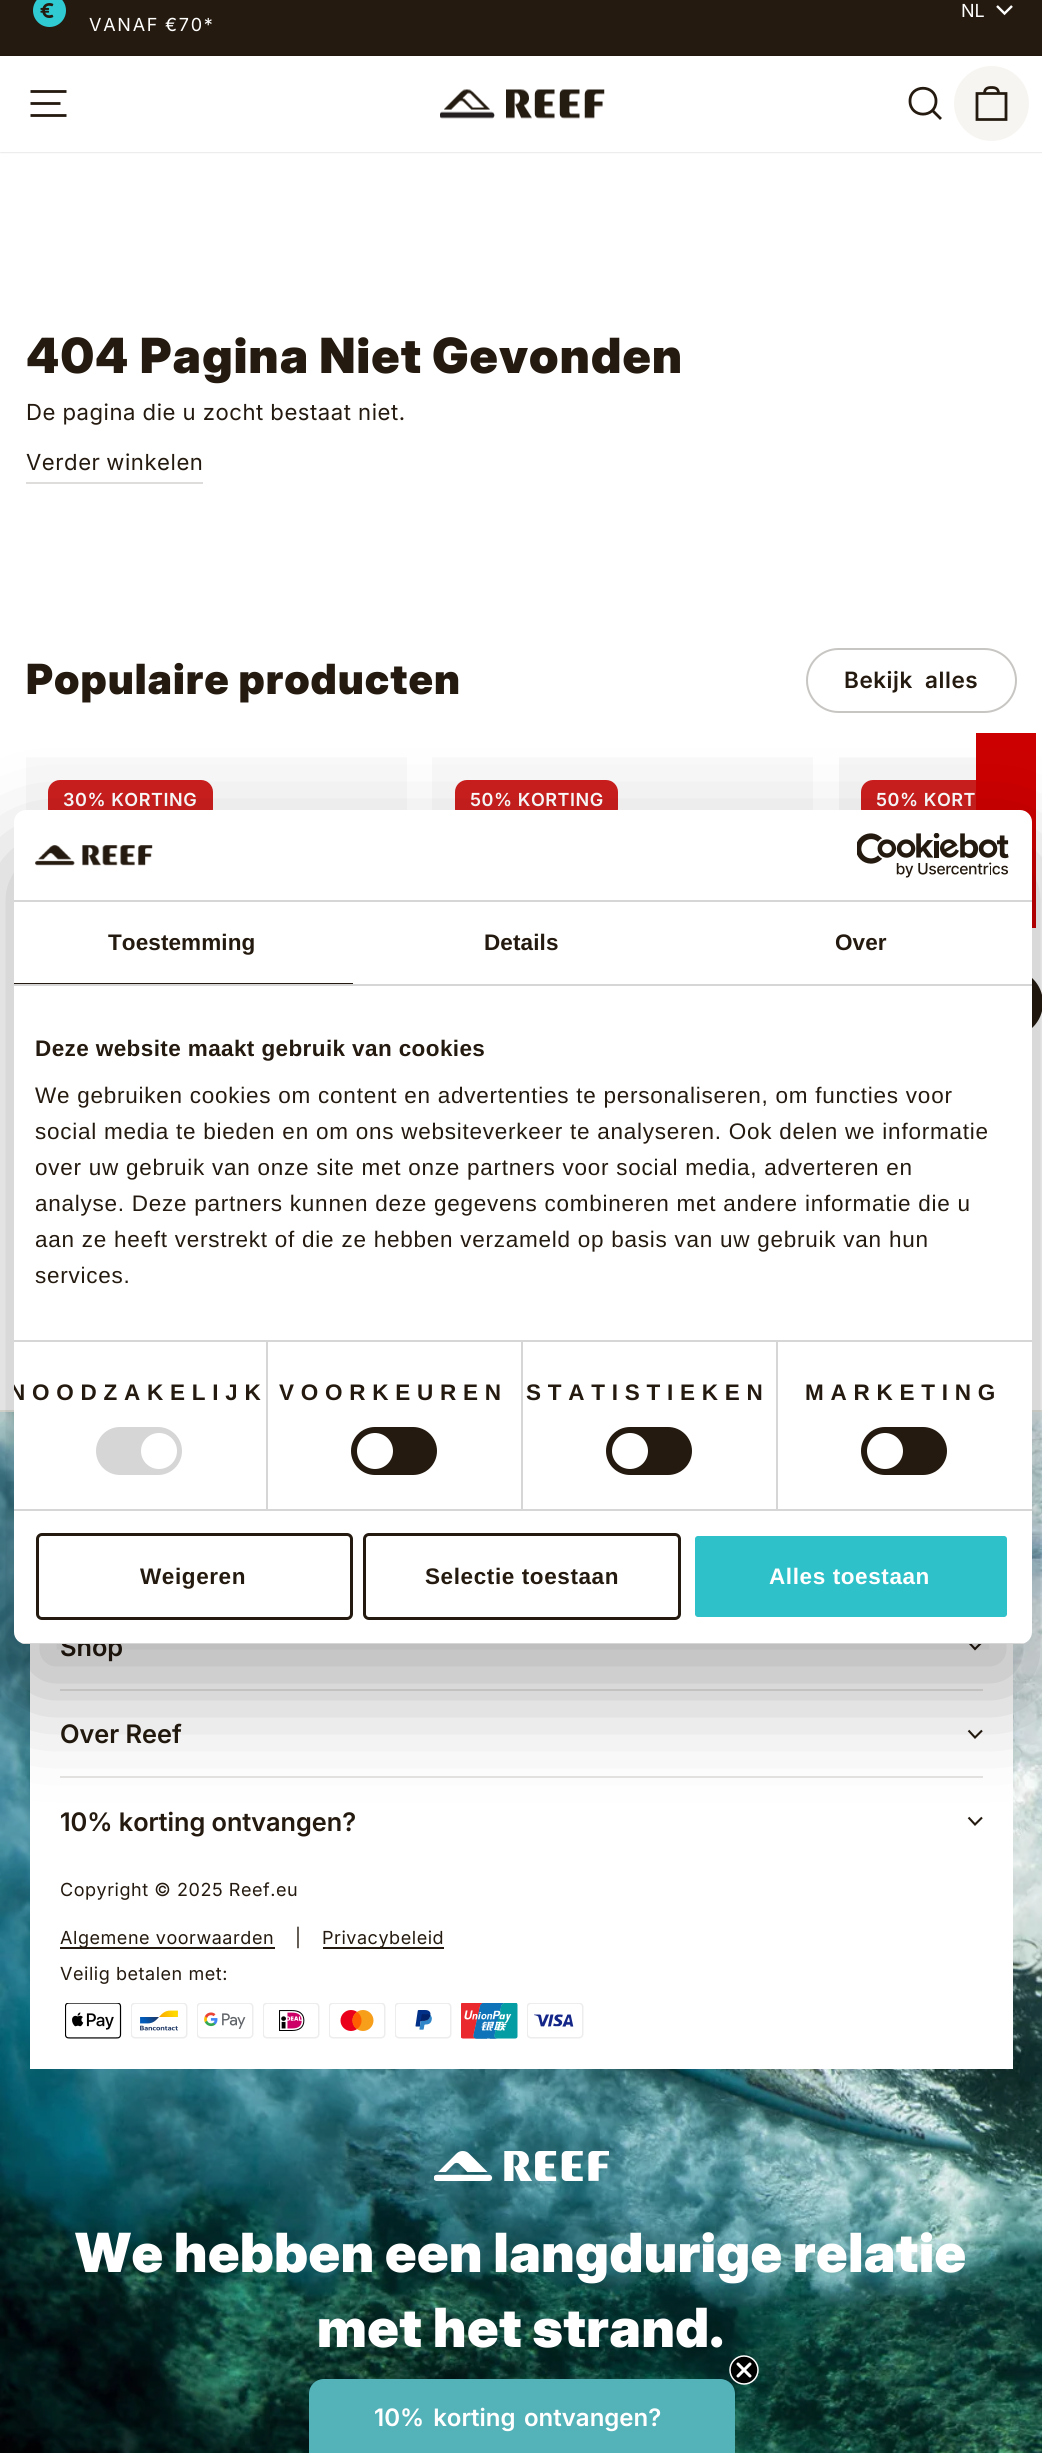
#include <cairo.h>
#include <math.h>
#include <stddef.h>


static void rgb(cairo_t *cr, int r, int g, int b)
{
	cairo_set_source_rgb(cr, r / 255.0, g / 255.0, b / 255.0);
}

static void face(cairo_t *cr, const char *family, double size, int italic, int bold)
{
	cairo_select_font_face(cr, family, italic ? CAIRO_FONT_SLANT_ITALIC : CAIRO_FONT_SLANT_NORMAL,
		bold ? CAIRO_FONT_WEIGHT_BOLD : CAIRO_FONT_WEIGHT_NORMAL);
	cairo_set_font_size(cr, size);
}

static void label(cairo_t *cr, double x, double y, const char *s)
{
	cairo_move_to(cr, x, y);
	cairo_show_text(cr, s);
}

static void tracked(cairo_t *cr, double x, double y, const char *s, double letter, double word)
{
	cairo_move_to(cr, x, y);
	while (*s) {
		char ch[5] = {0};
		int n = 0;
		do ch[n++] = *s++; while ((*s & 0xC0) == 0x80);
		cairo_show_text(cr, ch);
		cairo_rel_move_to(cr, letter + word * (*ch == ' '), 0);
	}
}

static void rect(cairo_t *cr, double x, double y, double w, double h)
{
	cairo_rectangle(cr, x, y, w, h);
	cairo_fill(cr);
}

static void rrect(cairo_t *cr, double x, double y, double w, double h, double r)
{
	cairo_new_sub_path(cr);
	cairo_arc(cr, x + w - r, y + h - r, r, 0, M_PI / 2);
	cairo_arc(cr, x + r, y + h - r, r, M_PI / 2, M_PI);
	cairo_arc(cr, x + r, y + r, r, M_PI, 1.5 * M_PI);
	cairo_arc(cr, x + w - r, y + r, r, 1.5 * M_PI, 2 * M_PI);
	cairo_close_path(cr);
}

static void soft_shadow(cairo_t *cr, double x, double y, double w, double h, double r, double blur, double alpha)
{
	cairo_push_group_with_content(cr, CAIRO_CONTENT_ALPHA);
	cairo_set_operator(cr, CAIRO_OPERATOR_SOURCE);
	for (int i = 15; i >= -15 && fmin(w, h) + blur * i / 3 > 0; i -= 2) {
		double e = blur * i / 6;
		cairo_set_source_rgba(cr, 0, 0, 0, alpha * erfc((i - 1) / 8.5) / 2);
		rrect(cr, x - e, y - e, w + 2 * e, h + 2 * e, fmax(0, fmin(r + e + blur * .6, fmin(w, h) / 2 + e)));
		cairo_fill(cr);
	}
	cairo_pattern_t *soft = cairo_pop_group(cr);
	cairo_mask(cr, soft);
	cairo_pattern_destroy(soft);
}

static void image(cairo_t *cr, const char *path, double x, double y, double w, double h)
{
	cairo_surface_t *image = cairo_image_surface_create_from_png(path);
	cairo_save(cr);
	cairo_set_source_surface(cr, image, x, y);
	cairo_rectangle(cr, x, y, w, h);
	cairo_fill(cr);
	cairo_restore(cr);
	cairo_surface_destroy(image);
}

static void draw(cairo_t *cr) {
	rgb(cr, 255, 255, 255);
	cairo_paint(cr);
	rgb(cr, 36, 26, 15);
	rect(cr, 0, 0, 1042, 56);
	face(cr, "Inter", 18, 0, 0);
	rgb(cr, 255, 255, 255);
	label(cr, 961, 17, "NL");
	cairo_new_path(cr);
	cairo_move_to(cr, 997, 6);
	cairo_line_to(cr, 1004.5, 13.5);
	cairo_line_to(cr, 1012, 6);
	cairo_set_line_width(cr, 2.4);
	cairo_stroke(cr);
	image(cr, "image0.png", 33, 0, 33, 27);
	tracked(cr, 89, 31, "VANAF €70*", 1.75, -1);
	rgb(cr, 0, 0, 0);
	soft_shadow(cr, 0, 56, 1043, 96, 0, 1, 0.2);
	rgb(cr, 255, 255, 255);
	rect(cr, 0, 56, 1042, 96);
	cairo_new_path(cr);
	cairo_move_to(cr, 30.5, 91.5);
	cairo_line_to(cr, 66.5, 91.5);
	cairo_move_to(cr, 30.5, 103.5);
	cairo_line_to(cr, 60.5, 103.5);
	cairo_move_to(cr, 30.5, 115.5);
	cairo_line_to(cr, 66.5, 115.5);
	rgb(cr, 36, 26, 15);
	cairo_set_line_width(cr, 2.8);
	cairo_stroke(cr);
	image(cr, "image1.png", 440, 89, 165, 30);
	cairo_new_path(cr);
	cairo_move_to(cr, 936, 101);
	cairo_curve_to(cr, 936, 118.5, 910, 118.5, 910, 101);
	cairo_curve_to(cr, 910, 84, 936, 84, 936, 101);
	cairo_close_path(cr);
	cairo_move_to(cr, 941, 119);
	cairo_line_to(cr, 932.5, 110.5);
	cairo_stroke(cr);
	rgb(cr, 247, 245, 241);
	cairo_arc(cr, 991.5, 103.5, 37.5, 0, 2 * M_PI);
	cairo_fill(cr);
	cairo_new_path(cr);
	cairo_move_to(cr, 977, 93.5);
	cairo_line_to(cr, 1006, 93.5);
	cairo_line_to(cr, 1006, 119.5);
	cairo_line_to(cr, 977, 119.5);
	cairo_close_path(cr);
	cairo_move_to(cr, 984.5, 93.5);
	cairo_curve_to(cr, 984.5, 88.5, 987.5, 87.5, 991.5, 87.5);
	cairo_curve_to(cr, 995.5, 87.5, 998.5, 88.5, 998.5, 93.5);
	rgb(cr, 36, 26, 15);
	cairo_stroke(cr);
	face(cr, "Inter Black", 48.5, 0, 0);
	tracked(cr, 26, 373, "404 Pagina Niet Gevonden", 1.25, 0);
	face(cr, "Inter", 22.1, 0, 0);
	tracked(cr, 26, 420, "De pagina die u zocht bestaat niet.", 0.55, -0.25);
	rgb(cr, 222, 221, 219);
	rect(cr, 26, 482, 177, 2);
	rgb(cr, 36, 26, 15);
	tracked(cr, 26, 470, "Verder winkelen", 0.55, -1);
	face(cr, "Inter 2 Black", 41.6, 0, 0);
	tracked(cr, 26, 694, "Populaire producten", 1, 0);
	rrect(cr, 807, 649, 209, 63, 31.5);
	rgb(cr, 200, 198, 195);
	cairo_set_line_width(cr, 2);
	cairo_stroke(cr);
	face(cr, "Inter SemiBold", 22.5, 0, 0);
	rgb(cr, 36, 26, 15);
	tracked(cr, 844, 688, "Bekijk alles", 0.55, 6);
	image(cr, "image2.png", 26, 757, 381, 53);
	rgb(cr, 204, 30, 30);
	rrect(cr, 48, 780, 165, 41, 12);
	cairo_fill(cr);
	face(cr, "Inter SemiBold", 18, 0, 0);
	rgb(cr, 255, 255, 255);
	tracked(cr, 63, 806, "30% KORTING", 0.55, 0);
	image(cr, "image2.png", 432, 757, 381, 53);
	rgb(cr, 204, 30, 30);
	rrect(cr, 455, 780, 163, 41, 12);
	cairo_fill(cr);
	rgb(cr, 255, 255, 255);
	tracked(cr, 470, 806, "50% KORTING", 0.55, 0);
	image(cr, "image3.png", 839, 757, 137, 53);
	rgb(cr, 204, 30, 30);
	rrect(cr, 861, 780, 164, 41, 12);
	cairo_fill(cr);
	rgb(cr, 255, 255, 255);
	tracked(cr, 876, 806, "50% KORT", 0.55, 0);
	rgb(cr, 36, 26, 15);
	cairo_new_path(cr);
	cairo_arc(cr, 1009, 1003, 34, 0, 2 * M_PI);
	cairo_fill(cr);
	image(cr, "image4.png", 0, 1412, 1042, 1041);
	rgb(cr, 232, 232, 225);
	rect(cr, 0, 1410, 1042, 2);
	rgb(cr, 255, 255, 255);
	rect(cr, 30, 1644, 983, 425);
	face(cr, "Inter 2 SemiBold", 25.5, 0, 0);
	rgb(cr, 36, 26, 15);
	label(cr, 60, 1656, "Shop");
	cairo_new_path(cr);
	cairo_move_to(cr, 968.5, 1642);
	cairo_line_to(cr, 975, 1649);
	cairo_line_to(cr, 982, 1642);
	cairo_set_line_width(cr, 2.1);
	cairo_stroke(cr);
	rgb(cr, 229, 228, 226);
	rect(cr, 60, 1689, 923, 2);
	rgb(cr, 36, 26, 15);
	label(cr, 60, 1743, "Over Reef");
	cairo_new_path(cr);
	cairo_move_to(cr, 968.5, 1730.5);
	cairo_line_to(cr, 975, 1737.5);
	cairo_line_to(cr, 982, 1730.5);
	cairo_stroke(cr);
	rgb(cr, 229, 228, 226);
	rect(cr, 60, 1776, 923, 2);
	rgb(cr, 36, 26, 15);
	label(cr, 60, 1831, "10% korting ontvangen?");
	cairo_new_path(cr);
	cairo_move_to(cr, 968.5, 1817.5);
	cairo_line_to(cr, 975, 1824.5);
	cairo_line_to(cr, 982, 1817.5);
	cairo_stroke(cr);
	face(cr, "Inter", 18, 0, 0);
	tracked(cr, 60, 1896, "Copyright © 2025 Reef.eu", 0.55, 0);
	rect(cr, 60, 1947, 215, 2);
	tracked(cr, 60, 1944, "Algemene voorwaarden", 0.55, 0);
	tracked(cr, 295, 1944, "|", 0.55, 0);
	rect(cr, 323, 1947, 121, 2);
	tracked(cr, 322, 1944, "Privacybeleid", 0.55, 0);
	tracked(cr, 60, 1980, "Veilig betalen met:", 0.55, 0);
	image(cr, "image5.png", 65, 2003, 57, 36);
	image(cr, "image6.png", 131, 2003, 57, 36);
	image(cr, "image7.png", 197, 2003, 57, 36);
	image(cr, "image8.png", 263, 2003, 57, 36);
	image(cr, "image9.png", 329, 2003, 57, 36);
	image(cr, "image10.png", 395, 2003, 57, 36);
	image(cr, "image11.png", 461, 2003, 57, 36);
	image(cr, "image12.png", 527, 2003, 57, 36);
	image(cr, "image13.png", 434, 2151, 175, 30);
	face(cr, "Inter Black", 54, 0, 0);
	rgb(cr, 255, 255, 255);
	tracked(cr, 75, 2272, "We hebben een langdurige relatie", 0.55, 0);
	tracked(cr, 317, 2347, "met het strand.", 0.55, 0);
	rgb(cr, 204, 0, 0);
	rect(cr, 976, 733, 60, 195);
	rgb(cr, 0, 0, 0);
	soft_shadow(cr, 14, 858, 1018, 834, 12, 51, 0.3);
	rgb(cr, 255, 255, 255);
	rrect(cr, 14, 810, 1018, 834, 12);
	cairo_fill(cr);
	rgb(cr, 214, 214, 214);
	rect(cr, 14, 900, 1018, 2);
	image(cr, "image14.png", 35, 845, 118, 21);
	image(cr, "image15.png", 857, 833, 152, 45);
	rect(cr, 14, 984, 1018, 2);
	rgb(cr, 36, 26, 15);
	rect(cr, 14, 983, 339, 1);
	face(cr, "Liberation Sans", 22.5, 0, 1);
	tracked(cr, 108, 950, "Toestemming", 0.1, 0);
	tracked(cr, 484, 950, "Details", 0.1, 0);
	tracked(cr, 835, 950, "Over", 0.1, 0);
	rgb(cr, 214, 214, 214);
	rect(cr, 266, 1341, 2, 168);
	rect(cr, 521, 1341, 2, 168);
	rect(cr, 776, 1341, 2, 168);
	rect(cr, 14, 1340, 1018, 2);
	rgb(cr, 36, 26, 15);
	tracked(cr, 35, 1056, "Deze website maakt gebruik van cookies", 0.4, 0);
	face(cr, "Liberation Sans", 22.5, 0, 0);
	tracked(cr, 35, 1103, "We gebruiken cookies om content en advertenties te personaliseren, om functies voor", 0.75, 0);
	tracked(cr, 35, 1139, "social media te bieden en om ons websiteverkeer te analyseren. Ook delen we informatie", 0.75, 0);
	tracked(cr, 35, 1175, "over uw gebruik van onze site met onze partners voor social media, adverteren en", 0.75, 0);
	tracked(cr, 35, 1211, "analyse. Deze partners kunnen deze gegevens combineren met andere informatie die u", 0.75, 0);
	tracked(cr, 35, 1247, "aan ze heeft verstrekt of die ze hebben verzameld op basis van uw gebruik van hun", 0.75, 0);
	tracked(cr, 35, 1283, "services.", 0.75, 0);
	rgb(cr, 214, 214, 214);
	rect(cr, 14, 1509, 1018, 2);
	cairo_save(cr);
	rrect(cr, 14, 810, 1018, 834, 12);
	cairo_clip(cr);
	face(cr, "Liberation Sans", 22.5, 0, 1);
	rgb(cr, 36, 26, 15);
	tracked(cr, 9, 1400, "NOODZAKELIJK", 6.75, 0);
	cairo_restore(cr);
	rrect(cr, 96, 1427, 86, 48, 24);
	cairo_fill(cr);
	rgb(cr, 255, 255, 255);
	cairo_arc(cr, 159, 1451, 18, 0, 2 * M_PI);
	cairo_fill(cr);
	face(cr, "Liberation Sans", 22.5, 0, 1);
	rgb(cr, 36, 26, 15);
	tracked(cr, 279, 1400, "VOORKEUREN", 6.75, 0);
	rrect(cr, 351, 1427, 86, 48, 24);
	cairo_fill(cr);
	rgb(cr, 255, 255, 255);
	cairo_arc(cr, 375, 1451, 18, 0, 2 * M_PI);
	cairo_fill(cr);
	rgb(cr, 36, 26, 15);
	tracked(cr, 526, 1400, "STATISTIEKEN", 6.75, 0);
	rrect(cr, 606, 1427, 86, 48, 24);
	cairo_fill(cr);
	rgb(cr, 255, 255, 255);
	cairo_arc(cr, 630, 1451, 18, 0, 2 * M_PI);
	cairo_fill(cr);
	rgb(cr, 36, 26, 15);
	tracked(cr, 805, 1400, "MARKETING", 6.75, 0);
	rrect(cr, 861, 1427, 86, 48, 24);
	cairo_fill(cr);
	rgb(cr, 255, 255, 255);
	cairo_arc(cr, 885, 1451, 18, 0, 2 * M_PI);
	cairo_fill(cr);
	cairo_save(cr);
	rrect(cr, 14, 810, 1018, 834, 12);
	cairo_clip(cr);
	rgb(cr, 214, 214, 214);
	rect(cr, 14, 1643, 1018, 1);
	cairo_restore(cr);
	rrect(cr, 37.5, 1534.5, 314, 84, 4.5);
	rgb(cr, 36, 26, 15);
	cairo_set_line_width(cr, 3);
	cairo_stroke(cr);
	tracked(cr, 140, 1584, "Weigeren", 0.6, 0);
	rrect(cr, 364.5, 1534.5, 315, 84, 4.5);
	cairo_stroke(cr);
	tracked(cr, 425, 1584, "Selectie toestaan", 0.6, 0);
	rgb(cr, 47, 193, 201);
	rrect(cr, 693.5, 1534.5, 315, 84, 4.5);
	cairo_fill_preserve(cr);
	rgb(cr, 255, 255, 255);
	cairo_stroke(cr);
	tracked(cr, 769, 1584, "Alles toestaan", 0.6, 0);
	rgb(cr, 84, 178, 185);
	cairo_new_path(cr);
	cairo_move_to(cr, 324, 2379);
	cairo_line_to(cr, 720, 2379);
	cairo_curve_to(cr, 728.5, 2379, 735, 2385.5, 735, 2394);
	cairo_line_to(cr, 735, 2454);
	cairo_line_to(cr, 309, 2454);
	cairo_line_to(cr, 309, 2394);
	cairo_curve_to(cr, 309, 2385.5, 315.5, 2379, 324, 2379);
	cairo_close_path(cr);
	cairo_fill(cr);
	rgb(cr, 0, 0, 0);
	cairo_arc(cr, 744, 2370, 14, 0, 2 * M_PI);
	cairo_fill_preserve(cr);
	rgb(cr, 255, 255, 255);
	cairo_set_line_width(cr, 1.5);
	cairo_stroke(cr);
	cairo_new_path(cr);
	cairo_move_to(cr, 738, 2364);
	cairo_line_to(cr, 750, 2376);
	cairo_move_to(cr, 738, 2376);
	cairo_line_to(cr, 750, 2364);
	cairo_close_path(cr);
	cairo_set_line_width(cr, 3);
	cairo_set_line_cap(cr, CAIRO_LINE_CAP_ROUND);
	cairo_set_line_join(cr, CAIRO_LINE_JOIN_ROUND);
	cairo_stroke(cr);
	face(cr, "Inter SemiBold", 24, 0, 0);
	tracked(cr, 374, 2426, "10% korting", 0, 3);
	label(cr, 524, 2426, "ontvangen?");
}

int main(void) {
	cairo_surface_t *surface = cairo_image_surface_create(CAIRO_FORMAT_RGB24, 1042, 2453);
	cairo_t *cr = cairo_create(surface);
	cairo_font_options_t *options = cairo_font_options_create();
	cairo_font_options_set_hint_metrics(options, CAIRO_HINT_METRICS_OFF);
	cairo_font_options_set_hint_style(options, CAIRO_HINT_STYLE_NONE);
	cairo_set_font_options(cr, options);
	cairo_set_miter_limit(cr, 4);
	draw(cr);
	cairo_surface_write_to_png(surface, "render.png");
	cairo_font_options_destroy(options);
	cairo_destroy(cr);
	cairo_surface_destroy(surface);
	return 0;
}
